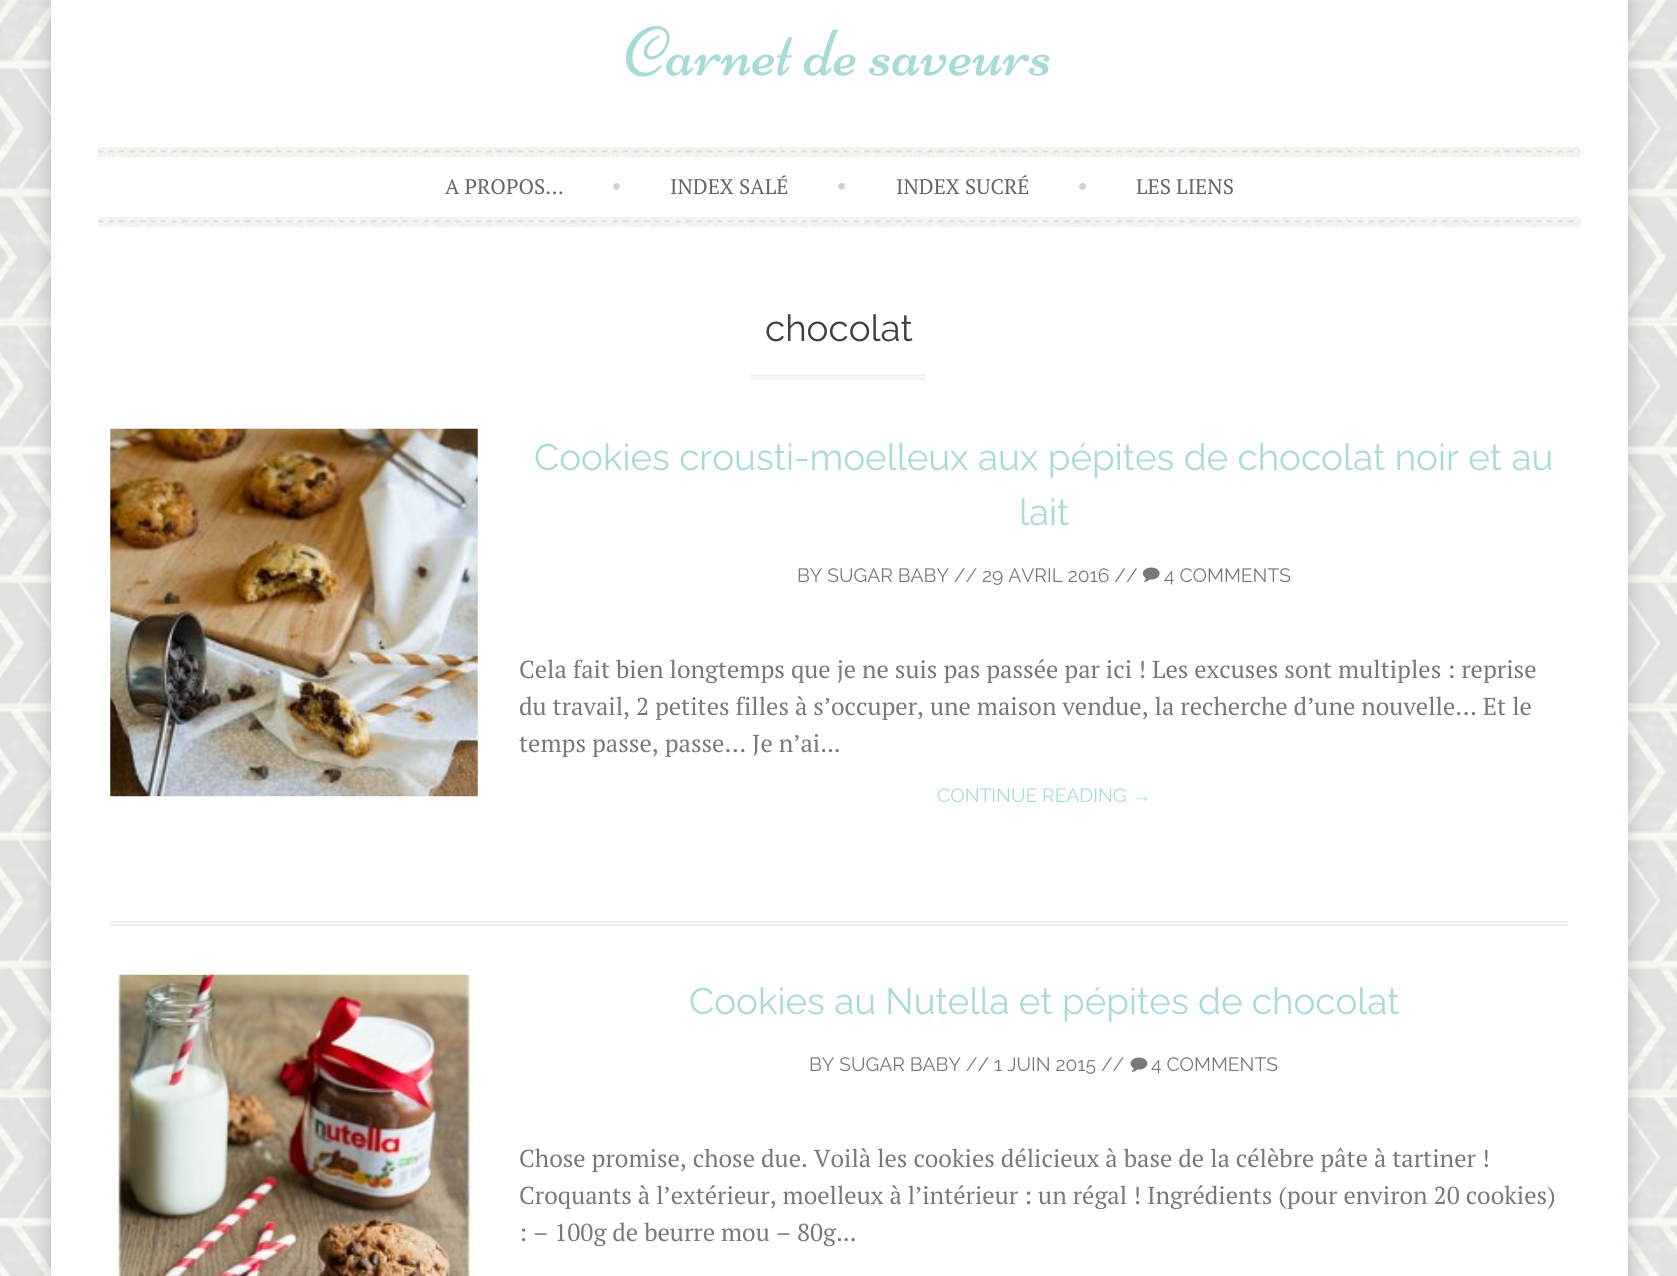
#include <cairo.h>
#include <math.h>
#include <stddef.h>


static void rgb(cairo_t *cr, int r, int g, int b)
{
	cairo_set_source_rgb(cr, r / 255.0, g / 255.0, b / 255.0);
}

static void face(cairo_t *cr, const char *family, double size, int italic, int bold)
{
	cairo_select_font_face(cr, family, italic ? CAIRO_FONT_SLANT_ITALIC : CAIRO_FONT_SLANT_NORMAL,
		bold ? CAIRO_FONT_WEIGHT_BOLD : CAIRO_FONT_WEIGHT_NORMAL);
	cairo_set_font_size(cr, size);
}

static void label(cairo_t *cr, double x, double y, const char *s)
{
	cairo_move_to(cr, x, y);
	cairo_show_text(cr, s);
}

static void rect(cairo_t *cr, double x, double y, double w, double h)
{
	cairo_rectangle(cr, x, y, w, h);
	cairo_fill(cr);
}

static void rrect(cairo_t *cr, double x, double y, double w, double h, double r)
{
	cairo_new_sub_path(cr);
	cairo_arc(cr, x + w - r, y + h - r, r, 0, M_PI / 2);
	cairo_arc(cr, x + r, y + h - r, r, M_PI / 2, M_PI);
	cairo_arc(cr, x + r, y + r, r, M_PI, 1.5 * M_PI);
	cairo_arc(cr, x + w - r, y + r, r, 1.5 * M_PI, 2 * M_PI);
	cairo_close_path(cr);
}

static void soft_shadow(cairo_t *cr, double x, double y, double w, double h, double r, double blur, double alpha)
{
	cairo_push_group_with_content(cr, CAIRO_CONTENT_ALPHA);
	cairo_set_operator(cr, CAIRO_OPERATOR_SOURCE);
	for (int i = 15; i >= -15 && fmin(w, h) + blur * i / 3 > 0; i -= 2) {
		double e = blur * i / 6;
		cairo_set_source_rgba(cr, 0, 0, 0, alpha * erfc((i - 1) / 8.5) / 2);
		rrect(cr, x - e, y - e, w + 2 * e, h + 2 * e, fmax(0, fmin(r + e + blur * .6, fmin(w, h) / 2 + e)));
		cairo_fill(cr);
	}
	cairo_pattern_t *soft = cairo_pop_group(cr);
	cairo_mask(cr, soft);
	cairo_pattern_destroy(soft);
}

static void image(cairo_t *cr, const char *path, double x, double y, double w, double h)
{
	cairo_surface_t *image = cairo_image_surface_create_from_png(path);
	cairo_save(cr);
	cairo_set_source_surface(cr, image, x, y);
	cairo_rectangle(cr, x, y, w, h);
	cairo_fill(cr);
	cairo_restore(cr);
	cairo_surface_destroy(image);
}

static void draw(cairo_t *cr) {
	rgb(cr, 255, 255, 255);
	cairo_paint(cr);
	image(cr, "image0.png", 0, 0, 1677, 1276);
	rgb(cr, 0, 0, 0);
	soft_shadow(cr, 51, 0, 1577, 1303, 0, 9, 0.2);
	rgb(cr, 255, 255, 255);
	rect(cr, 51, 0, 1577, 1276);
	image(cr, "image1.png", 625, 26, 425, 51);
	image(cr, "image2.png", 98, 147, 1483, 11);
	face(cr, "PT Serif", 21, 0, 0);
	rgb(cr, 102, 102, 102);
	label(cr, 445, 194, "A PROPOS…");
	face(cr, "PT Serif", 24.5, 0, 0);
	rgb(cr, 210, 210, 210);
	label(cr, 611, 194, "•");
	face(cr, "PT Serif", 21, 0, 0);
	rgb(cr, 102, 102, 102);
	label(cr, 670, 194, "INDEX SALÉ");
	face(cr, "PT Serif", 24.5, 0, 0);
	rgb(cr, 210, 210, 210);
	label(cr, 836, 194, "•");
	face(cr, "PT Serif", 21, 0, 0);
	rgb(cr, 102, 102, 102);
	label(cr, 896, 194, "INDEX SUCRÉ");
	face(cr, "PT Serif", 24.5, 0, 0);
	rgb(cr, 210, 210, 210);
	label(cr, 1077, 194, "•");
	face(cr, "PT Serif", 21, 0, 0);
	rgb(cr, 102, 102, 102);
	label(cr, 1136, 194, "LES LIENS");
	image(cr, "image3.png", 98, 217, 1483, 11);
	image(cr, "image4.png", 750, 374, 176, 6);
	face(cr, "Raleway", 36.75, 0, 0);
	rgb(cr, 64, 64, 64);
	label(cr, 765, 341, "chocolat");
	rgb(cr, 238, 238, 238);
	rect(cr, 110, 921, 1458, 2);
	rect(cr, 110, 924, 1458, 2);
	image(cr, "image5.png", 110, 428, 368, 369);
	rgb(cr, 167, 219, 216);
	label(cr, 534, 470, "Cookies crousti-moelleux aux pépites de chocolat noir et au");
	label(cr, 1019, 525, "lait");
	face(cr, "Raleway", 19.25, 0, 0);
	rgb(cr, 121, 121, 121);
	label(cr, 797, 582, "BY SUGAR BABY // 29 AVRIL 2016 //");
	image(cr, "image6.png", 1142, 567, 18, 15);
	label(cr, 1164, 582, "4 COMMENTS");
	face(cr, "PT Serif", 24.5, 0, 0);
	label(cr, 519, 678, "Cela fait bien longtemps que je ne suis pas passée par ici ! Les excuses sont multiples : reprise");
	label(cr, 519, 715, "du travail, 2 petites filles à s’occuper, une maison vendue, la recherche d’une nouvelle… Et le");
	label(cr, 519, 752, "temps passe, passe… Je n’ai...");
	face(cr, "Raleway", 19.25, 0, 0);
	rgb(cr, 167, 219, 216);
	label(cr, 937, 802, "CONTINUE READING");
	face(cr, "Liberation Sans", 19.25, 0, 0);
	label(cr, 1132, 802, "→");
	image(cr, "image7.png", 110, 974, 364, 302);
	face(cr, "Raleway", 36.75, 0, 0);
	label(cr, 689, 1014, "Cookies au Nutella et pépites de chocolat");
	face(cr, "Raleway", 19.25, 0, 0);
	rgb(cr, 121, 121, 121);
	label(cr, 809, 1071, "BY SUGAR BABY // 1 JUIN 2015 //");
	image(cr, "image8.png", 1130, 1057, 18, 15);
	label(cr, 1151, 1071, "4 COMMENTS");
	face(cr, "PT Serif", 24.5, 0, 0);
	label(cr, 519, 1167, "Chose promise, chose due. Voilà les cookies délicieux à base de la célèbre pâte à tartiner !");
	label(cr, 519, 1204, "Croquants à l’extérieur, moelleux à l’intérieur : un régal ! Ingrédients (pour environ 20 cookies)");
	label(cr, 519, 1241, ": – 100g de beurre mou – 80g...");
}

int main(void) {
	cairo_surface_t *surface = cairo_image_surface_create(CAIRO_FORMAT_RGB24, 1677, 1276);
	cairo_t *cr = cairo_create(surface);
	cairo_font_options_t *options = cairo_font_options_create();
	cairo_font_options_set_hint_metrics(options, CAIRO_HINT_METRICS_OFF);
	cairo_font_options_set_hint_style(options, CAIRO_HINT_STYLE_NONE);
	cairo_set_font_options(cr, options);
	cairo_set_miter_limit(cr, 4);
	draw(cr);
	cairo_surface_write_to_png(surface, "render.png");
	cairo_font_options_destroy(options);
	cairo_destroy(cr);
	cairo_surface_destroy(surface);
	return 0;
}
